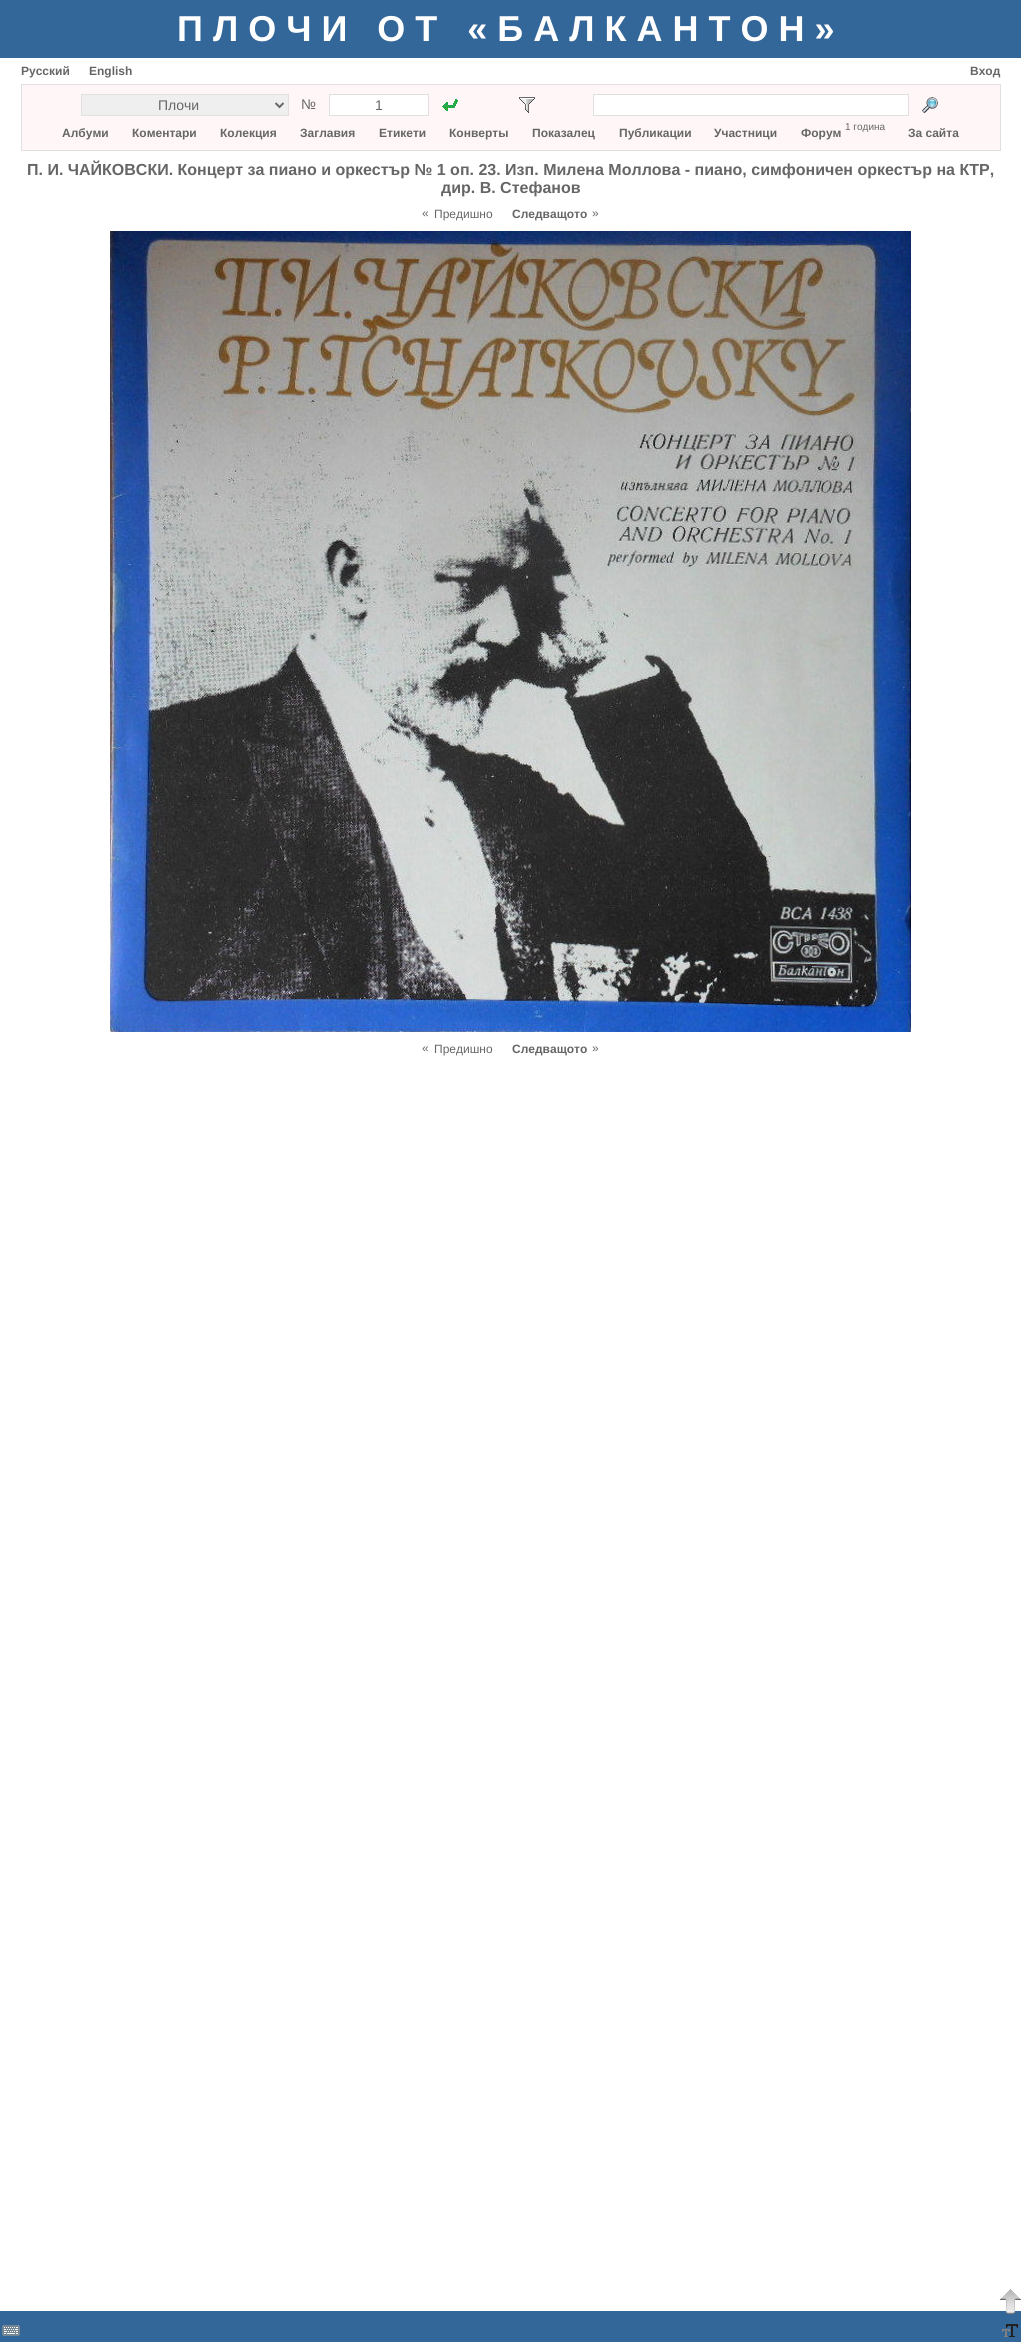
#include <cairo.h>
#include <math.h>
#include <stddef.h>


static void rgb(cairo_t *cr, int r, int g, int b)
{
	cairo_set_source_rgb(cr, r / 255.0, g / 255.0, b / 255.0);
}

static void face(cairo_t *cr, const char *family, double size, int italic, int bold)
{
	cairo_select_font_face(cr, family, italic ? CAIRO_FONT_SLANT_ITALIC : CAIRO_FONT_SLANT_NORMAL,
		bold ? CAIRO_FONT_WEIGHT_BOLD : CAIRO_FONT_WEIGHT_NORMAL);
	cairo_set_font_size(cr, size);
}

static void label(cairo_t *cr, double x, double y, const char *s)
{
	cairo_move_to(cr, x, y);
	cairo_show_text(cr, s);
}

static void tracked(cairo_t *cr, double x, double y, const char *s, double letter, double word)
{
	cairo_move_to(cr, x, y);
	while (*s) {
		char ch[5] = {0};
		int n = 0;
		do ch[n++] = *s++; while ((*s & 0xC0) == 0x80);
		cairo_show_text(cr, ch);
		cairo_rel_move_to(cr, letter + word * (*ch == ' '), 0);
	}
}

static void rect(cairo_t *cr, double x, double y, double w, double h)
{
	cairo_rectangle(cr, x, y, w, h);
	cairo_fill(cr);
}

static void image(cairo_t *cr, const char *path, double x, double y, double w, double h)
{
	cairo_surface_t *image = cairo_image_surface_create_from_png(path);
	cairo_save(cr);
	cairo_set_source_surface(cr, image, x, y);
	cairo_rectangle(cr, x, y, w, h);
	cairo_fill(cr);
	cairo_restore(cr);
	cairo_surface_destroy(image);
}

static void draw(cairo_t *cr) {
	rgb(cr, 255, 255, 255);
	cairo_paint(cr);
	rgb(cr, 51, 102, 153);
	rect(cr, 0, 0, 1021, 58);
	face(cr, "Liberation Sans", 36, 0, 1);
	rgb(cr, 255, 255, 255);
	tracked(cr, 177, 41, "ПЛОЧИ ОТ «БАЛКАНТОН»", 10, 0);
	face(cr, "Liberation Sans", 12, 0, 1);
	rgb(cr, 102, 102, 102);
	label(cr, 21, 75, "Русский");
	label(cr, 89, 75, "English");
	label(cr, 970, 75, "Вход");
	rgb(cr, 255, 247, 247);
	cairo_rectangle(cr, 21.5, 84.5, 979, 66);
	cairo_fill_preserve(cr);
	rgb(cr, 224, 224, 224);
	cairo_set_line_width(cr, 1);
	cairo_stroke(cr);
	rgb(cr, 239, 239, 239);
	cairo_rectangle(cr, 81.5, 94.5, 207, 21);
	cairo_fill_preserve(cr);
	rgb(cr, 224, 224, 224);
	cairo_stroke(cr);
	cairo_new_path(cr);
	cairo_move_to(cr, 275.5, 103);
	cairo_line_to(cr, 279.5, 107);
	cairo_line_to(cr, 283.5, 103);
	rgb(cr, 102, 102, 102);
	cairo_set_line_width(cr, 2);
	cairo_stroke(cr);
	face(cr, "Liberation Sans", 14, 0, 0);
	label(cr, 158, 110, "Плочи");
	label(cr, 301, 109, "№");
	rgb(cr, 255, 255, 255);
	cairo_rectangle(cr, 329.5, 94.5, 99, 21);
	cairo_fill_preserve(cr);
	rgb(cr, 224, 224, 224);
	cairo_set_line_width(cr, 1);
	cairo_stroke(cr);
	rgb(cr, 102, 102, 102);
	label(cr, 375, 110, "1");
	image(cr, "image0.png", 442, 99, 16, 12);
	image(cr, "image1.png", 519, 97, 16, 16);
	rgb(cr, 255, 255, 255);
	cairo_rectangle(cr, 593.5, 94.5, 315, 21);
	cairo_fill_preserve(cr);
	rgb(cr, 224, 224, 224);
	cairo_stroke(cr);
	image(cr, "image2.png", 922, 97, 16, 16);
	face(cr, "Liberation Sans", 12, 0, 1);
	rgb(cr, 102, 102, 102);
	label(cr, 62, 137, "Албуми");
	label(cr, 132, 137, "Коментари");
	label(cr, 220, 137, "Колекция");
	label(cr, 300, 137, "Заглавия");
	label(cr, 379, 137, "Етикети");
	label(cr, 449, 137, "Конверты");
	label(cr, 532, 137, "Показалец");
	label(cr, 619, 137, "Публикации");
	label(cr, 714, 137, "Участници");
	label(cr, 801, 137, "Форум");
	face(cr, "Liberation Sans", 10, 0, 0);
	label(cr, 845, 130, "1 година");
	face(cr, "Liberation Sans", 12, 0, 1);
	label(cr, 908, 137, "За сайта");
	face(cr, "Liberation Sans", 16, 0, 1);
	label(cr, 27, 175, "П. И. ЧАЙКОВСКИ. Концерт за пиано и оркестър № 1 оп. 23. Изп. Милена Моллова - пиано, симфоничен оркестър на КТР,");
	label(cr, 441, 193, "дир. В. Стефанов");
	face(cr, "Liberation Sans", 12, 0, 0);
	label(cr, 422, 217, "«");
	label(cr, 434, 218, "Предишно");
	face(cr, "Liberation Sans", 12, 0, 1);
	label(cr, 512, 218, "Следващото");
	face(cr, "Liberation Sans", 12, 0, 0);
	label(cr, 592, 217, "»");
	image(cr, "image3.png", 110, 231, 801, 801);
	label(cr, 422, 1052, "«");
	label(cr, 434, 1053, "Предишно");
	face(cr, "Liberation Sans", 12, 0, 1);
	label(cr, 512, 1053, "Следващото");
	face(cr, "Liberation Sans", 12, 0, 0);
	label(cr, 592, 1052, "»");
	rgb(cr, 51, 102, 153);
	rect(cr, 0, 2311, 1021, 31);
	image(cr, "image4.png", 999, 2289, 22, 25);
	image(cr, "image5.png", 2, 2325, 18, 11);
	image(cr, "image6.png", 1002, 2324, 16, 13);
}

int main(void) {
	cairo_surface_t *surface = cairo_image_surface_create(CAIRO_FORMAT_RGB24, 1021, 2342);
	cairo_t *cr = cairo_create(surface);
	cairo_font_options_t *options = cairo_font_options_create();
	cairo_font_options_set_hint_metrics(options, CAIRO_HINT_METRICS_OFF);
	cairo_font_options_set_hint_style(options, CAIRO_HINT_STYLE_NONE);
	cairo_set_font_options(cr, options);
	cairo_set_miter_limit(cr, 4);
	draw(cr);
	cairo_surface_write_to_png(surface, "render.png");
	cairo_font_options_destroy(options);
	cairo_destroy(cr);
	cairo_surface_destroy(surface);
	return 0;
}
